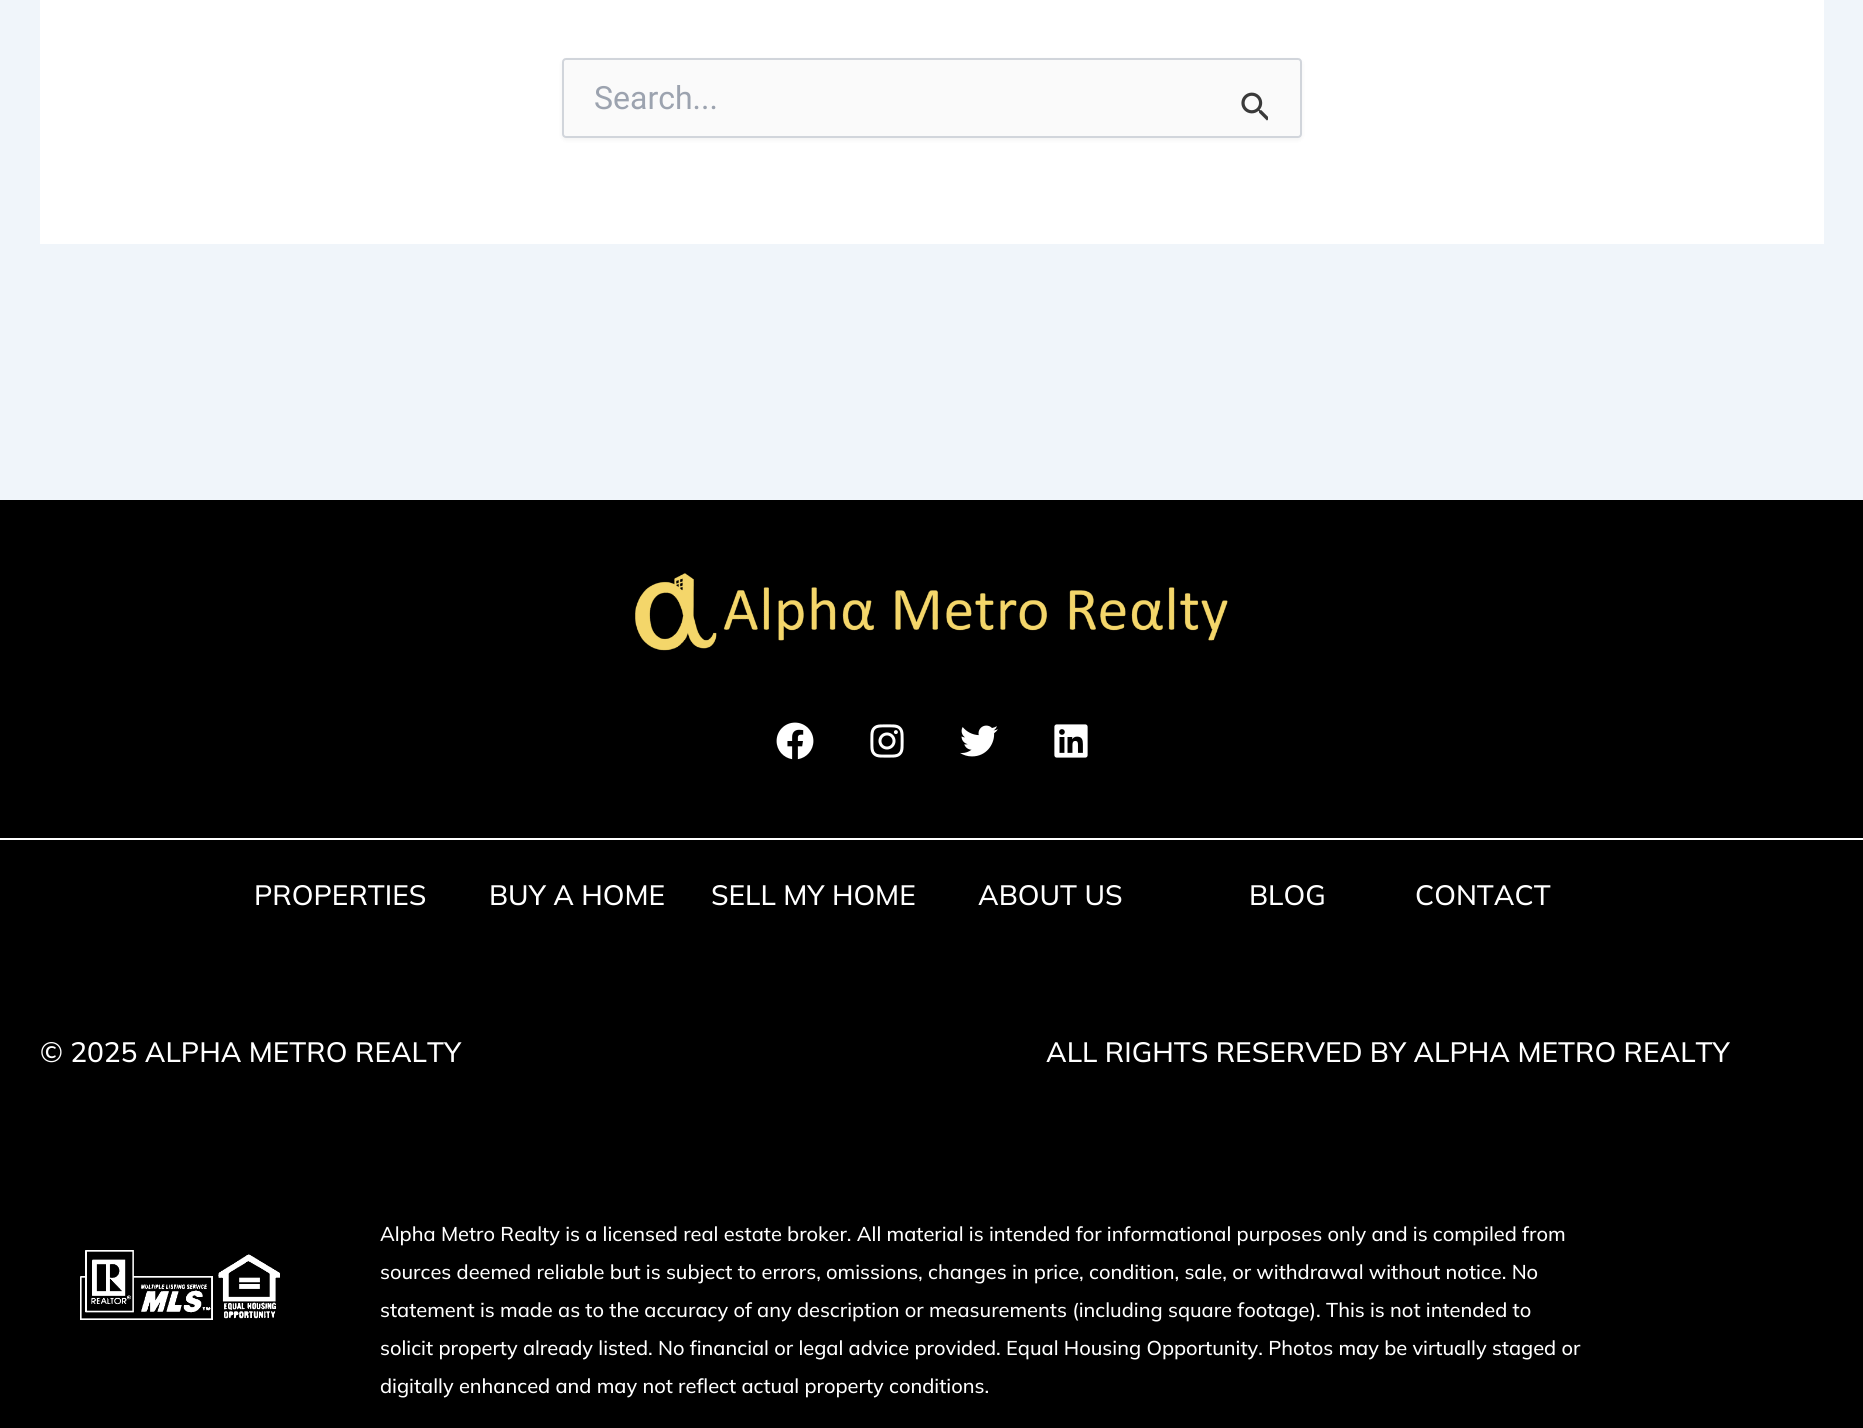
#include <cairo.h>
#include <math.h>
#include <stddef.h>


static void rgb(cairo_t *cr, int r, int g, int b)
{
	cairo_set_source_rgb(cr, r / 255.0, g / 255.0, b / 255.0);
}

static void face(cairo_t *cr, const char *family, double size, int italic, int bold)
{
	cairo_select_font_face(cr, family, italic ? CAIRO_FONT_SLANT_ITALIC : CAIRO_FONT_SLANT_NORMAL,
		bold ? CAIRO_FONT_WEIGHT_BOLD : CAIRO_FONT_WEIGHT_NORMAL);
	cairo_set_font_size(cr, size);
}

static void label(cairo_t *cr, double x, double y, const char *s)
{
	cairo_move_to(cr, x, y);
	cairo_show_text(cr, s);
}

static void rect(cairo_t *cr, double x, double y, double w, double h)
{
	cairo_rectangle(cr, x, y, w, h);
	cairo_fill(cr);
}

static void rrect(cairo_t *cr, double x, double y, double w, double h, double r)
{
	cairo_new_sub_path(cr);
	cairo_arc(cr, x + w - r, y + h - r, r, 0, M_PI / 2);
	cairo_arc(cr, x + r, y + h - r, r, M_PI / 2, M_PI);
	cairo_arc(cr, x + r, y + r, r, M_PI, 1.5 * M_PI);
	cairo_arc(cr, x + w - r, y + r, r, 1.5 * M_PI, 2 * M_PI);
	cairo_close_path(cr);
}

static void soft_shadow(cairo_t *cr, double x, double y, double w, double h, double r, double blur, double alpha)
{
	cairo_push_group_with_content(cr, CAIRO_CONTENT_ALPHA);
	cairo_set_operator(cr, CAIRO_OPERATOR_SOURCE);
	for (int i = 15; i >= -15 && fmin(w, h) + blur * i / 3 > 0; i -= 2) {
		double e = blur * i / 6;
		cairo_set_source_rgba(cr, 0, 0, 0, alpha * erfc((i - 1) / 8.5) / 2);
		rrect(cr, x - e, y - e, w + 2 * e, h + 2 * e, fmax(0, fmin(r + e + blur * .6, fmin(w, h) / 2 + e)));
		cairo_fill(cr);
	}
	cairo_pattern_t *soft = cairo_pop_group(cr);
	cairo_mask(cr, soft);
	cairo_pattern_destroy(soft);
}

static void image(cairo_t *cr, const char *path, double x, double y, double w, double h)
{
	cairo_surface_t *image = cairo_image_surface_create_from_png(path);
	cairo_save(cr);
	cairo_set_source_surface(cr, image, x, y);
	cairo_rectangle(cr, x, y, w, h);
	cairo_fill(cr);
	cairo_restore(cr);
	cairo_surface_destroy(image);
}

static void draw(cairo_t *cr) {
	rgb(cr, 240, 245, 250);
	cairo_paint(cr);
	rgb(cr, 255, 255, 255);
	rect(cr, 40, 0, 1784, 244);
	rgb(cr, 0, 0, 0);
	soft_shadow(cr, 562, 60, 740, 80, 4, 2, 0.05);
	rgb(cr, 250, 250, 250);
	rrect(cr, 563, 59, 738, 78, 3);
	cairo_fill_preserve(cr);
	rgb(cr, 209, 213, 219);
	cairo_stroke(cr);
	face(cr, "Roboto", 32, 0, 0);
	rgb(cr, 156, 163, 175);
	label(cr, 594, 109, "Search...");
	image(cr, "image0.png", 1241, 92, 27, 29);
	rgb(cr, 0, 0, 0);
	rect(cr, 0, 500, 1863, 928);
	image(cr, "image1.png", 635, 573, 593, 78);
	image(cr, "image2.png", 776, 722, 38, 38);
	image(cr, "image3.png", 870, 724, 34, 34);
	image(cr, "image4.png", 960, 725, 38, 32);
	image(cr, "image5.png", 1054, 724, 34, 34);
	rgb(cr, 255, 255, 255);
	rect(cr, 0, 838, 1863, 2);
	face(cr, "Mulish Medium", 28, 0, 0);
	label(cr, 254, 905, "PROPERTIES");
	label(cr, 489, 905, "BUY A HOME");
	label(cr, 711, 905, "SELL MY HOME");
	label(cr, 978, 905, "ABOUT US");
	label(cr, 1249, 905, "BLOG");
	label(cr, 1415, 905, "CONTACT");
	label(cr, 40, 1062, "© 2025 ALPHA METRO REALTY");
	label(cr, 1046, 1062, "ALL RIGHTS RESERVED BY ALPHA METRO REALTY");
	image(cr, "image6.png", 80, 1250, 200, 70);
	face(cr, "Mulish Medium", 20, 0, 0);
	label(cr, 380, 1241, "Alpha Metro Realty is a licensed real estate broker. All material is intended for informational purposes only and is compiled from");
	label(cr, 380, 1279, "sources deemed reliable but is subject to errors, omissions, changes in price, condition, sale, or withdrawal without notice. No");
	label(cr, 380, 1317, "statement is made as to the accuracy of any description or measurements (including square footage). This is not intended to");
	label(cr, 380, 1355, "solicit property already listed. No financial or legal advice provided. Equal Housing Opportunity. Photos may be virtually staged or");
	label(cr, 380, 1393, "digitally enhanced and may not reflect actual property conditions.");
}

int main(void) {
	cairo_surface_t *surface = cairo_image_surface_create(CAIRO_FORMAT_RGB24, 1863, 1428);
	cairo_t *cr = cairo_create(surface);
	cairo_font_options_t *options = cairo_font_options_create();
	cairo_font_options_set_hint_metrics(options, CAIRO_HINT_METRICS_OFF);
	cairo_font_options_set_hint_style(options, CAIRO_HINT_STYLE_NONE);
	cairo_set_font_options(cr, options);
	cairo_set_miter_limit(cr, 4);
	draw(cr);
	cairo_surface_write_to_png(surface, "render.png");
	cairo_font_options_destroy(options);
	cairo_destroy(cr);
	cairo_surface_destroy(surface);
	return 0;
}
